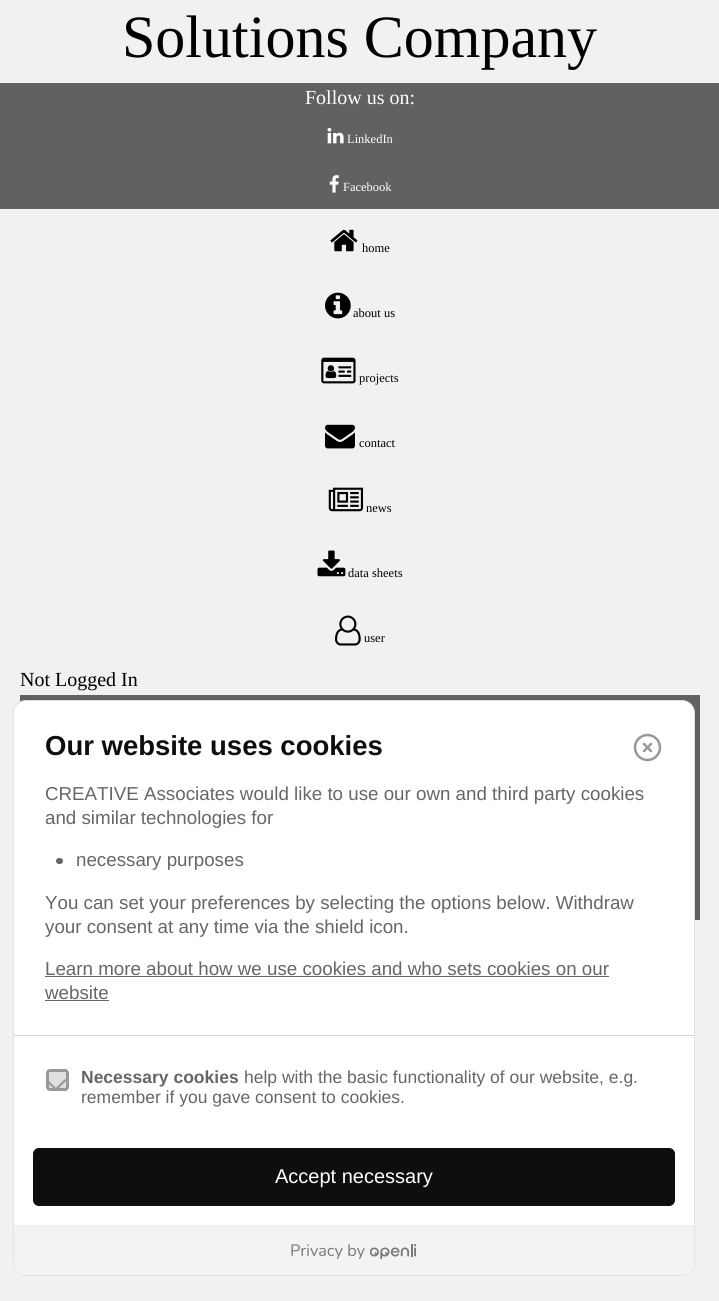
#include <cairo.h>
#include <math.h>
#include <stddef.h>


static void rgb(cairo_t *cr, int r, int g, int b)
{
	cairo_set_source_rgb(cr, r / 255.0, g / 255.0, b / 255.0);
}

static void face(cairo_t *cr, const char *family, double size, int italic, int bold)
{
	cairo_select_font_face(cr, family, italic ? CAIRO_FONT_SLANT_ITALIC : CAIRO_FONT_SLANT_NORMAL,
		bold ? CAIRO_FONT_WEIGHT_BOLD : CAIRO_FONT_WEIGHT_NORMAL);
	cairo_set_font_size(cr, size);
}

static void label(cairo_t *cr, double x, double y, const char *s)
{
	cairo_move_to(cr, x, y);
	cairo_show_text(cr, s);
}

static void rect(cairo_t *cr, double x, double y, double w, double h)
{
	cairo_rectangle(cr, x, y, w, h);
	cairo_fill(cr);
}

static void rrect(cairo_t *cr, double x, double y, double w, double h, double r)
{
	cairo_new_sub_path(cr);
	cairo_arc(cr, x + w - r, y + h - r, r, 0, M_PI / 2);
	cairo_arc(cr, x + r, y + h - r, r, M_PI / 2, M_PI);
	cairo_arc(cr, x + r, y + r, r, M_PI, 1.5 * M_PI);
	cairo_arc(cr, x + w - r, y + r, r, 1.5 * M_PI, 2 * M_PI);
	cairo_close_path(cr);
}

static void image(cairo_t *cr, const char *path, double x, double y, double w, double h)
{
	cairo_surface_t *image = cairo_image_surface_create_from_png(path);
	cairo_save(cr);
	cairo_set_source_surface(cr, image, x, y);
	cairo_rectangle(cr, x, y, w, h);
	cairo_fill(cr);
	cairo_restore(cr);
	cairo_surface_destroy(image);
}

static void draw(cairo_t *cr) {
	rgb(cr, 241, 241, 241);
	cairo_paint(cr);
	face(cr, "Liberation Serif", 60, 0, 0);
	rgb(cr, 0, 0, 0);
	label(cr, 122, 57, "Solutions Company");
	rgb(cr, 97, 97, 97);
	rect(cr, 0, 83, 719, 126);
	face(cr, "Liberation Serif", 20, 0, 0);
	rgb(cr, 255, 255, 255);
	label(cr, 305, 104, "Follow us on:");
	image(cr, "image0.png", 327, 128, 17, 16);
	face(cr, "Liberation Serif", 12.5, 0, 0);
	label(cr, 347, 143, "LinkedIn");
	image(cr, "image1.png", 329, 175, 10, 18);
	label(cr, 343, 191, "Facebook");
	image(cr, "image2.png", 330, 229, 28, 23);
	rgb(cr, 0, 0, 0);
	label(cr, 362, 252, "home");
	image(cr, "image3.png", 325, 292, 26, 27);
	label(cr, 353, 317, "about us");
	image(cr, "image4.png", 321, 357, 35, 27);
	label(cr, 359, 382, "projects");
	image(cr, "image5.png", 325, 424, 30, 25);
	label(cr, 359, 447, "contact");
	image(cr, "image6.png", 328, 487, 36, 25);
	label(cr, 366, 512, "news");
	image(cr, "image7.png", 317, 550, 29, 27);
	label(cr, 348, 577, "data sheets");
	image(cr, "image8.png", 335, 615, 26, 31);
	label(cr, 364, 642, "user");
	face(cr, "Liberation Serif", 20, 0, 0);
	label(cr, 20, 686, "Not Logged In");
	rgb(cr, 97, 97, 97);
	rect(cr, 20, 695, 680, 225);
	rgb(cr, 255, 255, 255);
	rrect(cr, 13.5, 700.5, 681, 575, 12.5);
	cairo_fill_preserve(cr);
	rgb(cr, 225, 225, 225);
	cairo_set_line_width(cr, 1);
	cairo_stroke(cr);
	rgb(cr, 211, 211, 211);
	rect(cr, 14, 1035, 680, 1);
	face(cr, "Liberation Sans", 27.5, 0, 1);
	rgb(cr, 14, 14, 14);
	label(cr, 45, 755, "Our website uses cookies");
	cairo_new_path(cr);
	cairo_arc(cr, 647.5, 747.5, 12.5, 0, 2 * M_PI);
	rgb(cr, 153, 153, 153);
	cairo_set_line_width(cr, 2.5);
	cairo_stroke(cr);
	cairo_new_path(cr);
	cairo_move_to(cr, 651, 744);
	cairo_line_to(cr, 644, 751);
	cairo_move_to(cr, 644, 744);
	cairo_line_to(cr, 651, 751);
	cairo_set_line_cap(cr, CAIRO_LINE_CAP_ROUND);
	cairo_set_line_join(cr, CAIRO_LINE_JOIN_ROUND);
	cairo_stroke(cr);
	face(cr, "Liberation Sans", 18.75, 0, 0);
	rgb(cr, 102, 102, 102);
	label(cr, 45, 800, "CREATIVE Associates would like to use our own and third party cookies");
	label(cr, 45, 824, "and similar technologies for");
	rrect(cr, 56, 858, 7, 6, 3);
	cairo_fill(cr);
	label(cr, 76, 866, "necessary purposes");
	label(cr, 45, 909, "You can set your preferences by selecting the options below. Withdraw");
	label(cr, 45, 933, "your consent at any time via the shield icon.");
	label(cr, 45, 975, "Learn more about how we use cookies and who sets cookies on our");
	rect(cr, 45, 976, 564, 1);
	label(cr, 45, 999, "website");
	rect(cr, 45, 1000, 64, 1);
	rgb(cr, 224, 224, 224);
	rrect(cr, 47.5, 1070.5, 20, 19, 2.5);
	cairo_fill_preserve(cr);
	rgb(cr, 153, 153, 153);
	cairo_set_line_width(cr, 3);
	cairo_set_line_cap(cr, CAIRO_LINE_CAP_BUTT);
	cairo_set_line_join(cr, CAIRO_LINE_JOIN_MITER);
	cairo_stroke(cr);
	cairo_new_path(cr);
	cairo_move_to(cr, 65, 1079);
	cairo_line_to(cr, 66.5, 1080.5);
	cairo_line_to(cr, 56, 1091);
	cairo_line_to(cr, 54, 1089.5);
	cairo_close_path(cr);
	cairo_fill(cr);
	cairo_new_path(cr);
	cairo_move_to(cr, 47, 1079);
	cairo_line_to(cr, 57.5, 1089.5);
	cairo_line_to(cr, 56, 1091);
	cairo_line_to(cr, 45.5, 1080.5);
	cairo_close_path(cr);
	cairo_fill(cr);
	face(cr, "Liberation Sans", 17.5, 0, 1);
	rgb(cr, 102, 102, 102);
	label(cr, 81, 1083, "Necessary cookies");
	face(cr, "Liberation Sans", 17.5, 0, 0);
	label(cr, 244, 1083, "help with the basic functionality of our website, e.g.");
	label(cr, 81, 1103, "remember if you gave consent to cookies.");
	rgb(cr, 14, 14, 14);
	rrect(cr, 33.5, 1148.5, 641, 57, 5.5);
	cairo_fill_preserve(cr);
	cairo_set_line_width(cr, 1);
	cairo_stroke(cr);
	face(cr, "Liberation Sans", 20, 0, 0);
	rgb(cr, 255, 255, 255);
	label(cr, 275, 1183, "Accept necessary");
	rgb(cr, 243, 243, 243);
	cairo_new_path(cr);
	cairo_move_to(cr, 14, 1225);
	cairo_line_to(cr, 694, 1225);
	cairo_line_to(cr, 694, 1262);
	cairo_curve_to(cr, 694, 1269, 688, 1275, 681, 1275);
	cairo_line_to(cr, 27, 1275);
	cairo_curve_to(cr, 20, 1275, 14, 1269, 14, 1262);
	cairo_close_path(cr);
	cairo_fill(cr);
	rgb(cr, 238, 238, 238);
	rect(cr, 14, 1225, 680, 1);
	image(cr, "image9.png", 291, 1244, 125, 15);
}

int main(void) {
	cairo_surface_t *surface = cairo_image_surface_create(CAIRO_FORMAT_RGB24, 719, 1301);
	cairo_t *cr = cairo_create(surface);
	cairo_font_options_t *options = cairo_font_options_create();
	cairo_font_options_set_hint_metrics(options, CAIRO_HINT_METRICS_OFF);
	cairo_font_options_set_hint_style(options, CAIRO_HINT_STYLE_NONE);
	cairo_set_font_options(cr, options);
	cairo_set_miter_limit(cr, 4);
	draw(cr);
	cairo_surface_write_to_png(surface, "render.png");
	cairo_font_options_destroy(options);
	cairo_destroy(cr);
	cairo_surface_destroy(surface);
	return 0;
}
